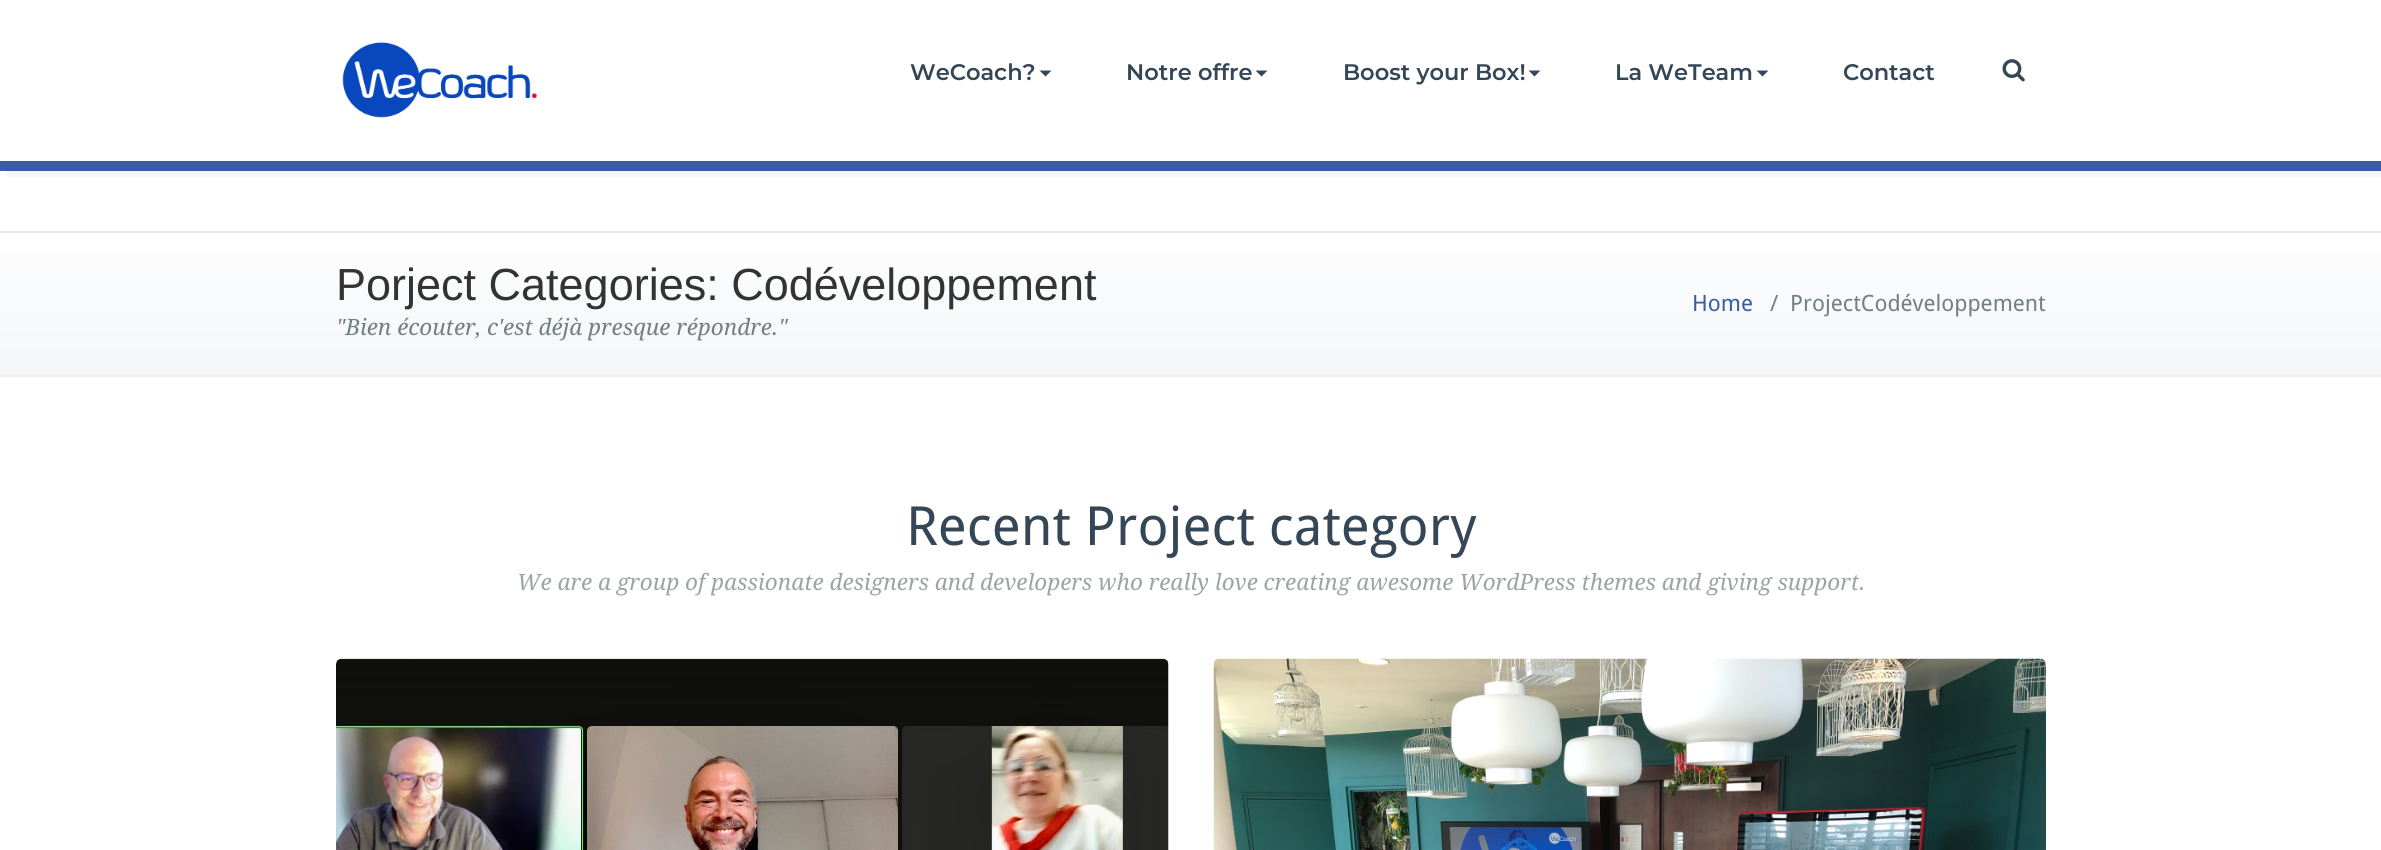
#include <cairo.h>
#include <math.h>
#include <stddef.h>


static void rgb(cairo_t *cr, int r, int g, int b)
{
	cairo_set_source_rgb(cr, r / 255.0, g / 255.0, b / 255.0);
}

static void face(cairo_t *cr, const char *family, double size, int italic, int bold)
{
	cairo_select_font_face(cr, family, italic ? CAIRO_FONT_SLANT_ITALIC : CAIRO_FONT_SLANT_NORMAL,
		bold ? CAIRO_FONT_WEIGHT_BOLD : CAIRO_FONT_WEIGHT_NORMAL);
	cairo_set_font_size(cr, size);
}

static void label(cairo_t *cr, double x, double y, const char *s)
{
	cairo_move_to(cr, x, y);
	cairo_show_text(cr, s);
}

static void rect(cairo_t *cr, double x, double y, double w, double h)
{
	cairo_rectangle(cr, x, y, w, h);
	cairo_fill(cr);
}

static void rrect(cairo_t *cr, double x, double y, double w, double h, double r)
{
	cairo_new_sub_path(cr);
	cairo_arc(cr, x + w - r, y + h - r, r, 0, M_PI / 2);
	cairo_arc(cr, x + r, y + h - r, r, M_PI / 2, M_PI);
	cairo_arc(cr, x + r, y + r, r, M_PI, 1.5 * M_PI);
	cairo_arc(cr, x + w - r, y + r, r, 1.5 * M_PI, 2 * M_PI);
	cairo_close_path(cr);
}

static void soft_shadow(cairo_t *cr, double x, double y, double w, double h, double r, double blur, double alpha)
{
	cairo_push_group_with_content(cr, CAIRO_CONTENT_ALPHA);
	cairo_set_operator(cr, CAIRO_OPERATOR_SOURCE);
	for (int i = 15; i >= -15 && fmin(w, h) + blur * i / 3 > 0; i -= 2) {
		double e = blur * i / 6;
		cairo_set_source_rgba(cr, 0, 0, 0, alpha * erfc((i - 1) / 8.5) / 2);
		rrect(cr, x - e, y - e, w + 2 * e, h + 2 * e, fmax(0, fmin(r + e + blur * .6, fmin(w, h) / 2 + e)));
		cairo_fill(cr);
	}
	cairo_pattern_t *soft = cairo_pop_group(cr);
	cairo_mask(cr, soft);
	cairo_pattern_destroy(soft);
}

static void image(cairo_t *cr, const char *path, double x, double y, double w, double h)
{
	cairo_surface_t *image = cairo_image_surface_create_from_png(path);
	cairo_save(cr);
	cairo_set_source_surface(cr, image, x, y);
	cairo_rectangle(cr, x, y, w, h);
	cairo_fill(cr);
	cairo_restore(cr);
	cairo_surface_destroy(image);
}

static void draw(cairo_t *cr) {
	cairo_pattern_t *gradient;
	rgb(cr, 255, 255, 255);
	cairo_paint(cr);
	cairo_save(cr);
	cairo_rectangle(cr, 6, 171, 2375, 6);
	cairo_clip(cr);
	rgb(cr, 0, 0, 0);
	soft_shadow(cr, 6, 6, 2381, 171, 0, 2, 0.04);
	cairo_restore(cr);
	rgb(cr, 57, 92, 163);
	rect(cr, 0, 161, 2381, 10);
	image(cr, "image0.png", 342, 42, 195, 76);
	face(cr, "Montserrat SemiBold", 22.5, 0, 0);
	rgb(cr, 53, 70, 86);
	label(cr, 910, 80, "WeCoach?");
	cairo_new_path(cr);
	cairo_move_to(cr, 1039.5, 70.5);
	cairo_line_to(cr, 1051.5, 70.5);
	cairo_line_to(cr, 1045.5, 76.5);
	cairo_close_path(cr);
	cairo_fill(cr);
	label(cr, 1126, 80, "Notre offre");
	cairo_new_path(cr);
	cairo_move_to(cr, 1255.5, 70.5);
	cairo_line_to(cr, 1267.5, 70.5);
	cairo_line_to(cr, 1261.5, 76.5);
	cairo_close_path(cr);
	cairo_fill(cr);
	label(cr, 1343, 80, "Boost your Box!");
	cairo_new_path(cr);
	cairo_move_to(cr, 1528.5, 70.5);
	cairo_line_to(cr, 1540.5, 70.5);
	cairo_line_to(cr, 1534.5, 76.5);
	cairo_close_path(cr);
	cairo_fill(cr);
	label(cr, 1615, 80, "La WeTeam");
	cairo_new_path(cr);
	cairo_move_to(cr, 1756.5, 70.5);
	cairo_line_to(cr, 1768.5, 70.5);
	cairo_line_to(cr, 1762.5, 76.5);
	cairo_close_path(cr);
	cairo_fill(cr);
	label(cr, 1843, 80, "Contact");
	image(cr, "image1.png", 2002, 59, 23, 23);
	gradient = cairo_pattern_create_linear(1191, 232, 1191, 375);
	cairo_pattern_add_color_stop_rgba(gradient, 0, 0.996, 0.996, 1, 1);
	cairo_pattern_add_color_stop_rgba(gradient, 1, 0.957, 0.965, 0.969, 1);
	cairo_set_source(cr, gradient);
	cairo_pattern_destroy(gradient);
	rect(cr, 0, 253, 2381, 122);
	rgb(cr, 228, 232, 234);
	rect(cr, 0, 231, 2381, 2);
	rgb(cr, 238, 238, 238);
	rect(cr, 0, 375, 2381, 2);
	face(cr, "Liberation Sans", 45, 0, 0);
	rgb(cr, 51, 51, 51);
	label(cr, 336, 300, "Porject Categories: Codéveloppement");
	face(cr, "Droid Serif", 22.5, 1, 0);
	rgb(cr, 115, 127, 133);
	label(cr, 336, 335, "\"Bien écouter, c'est déjà presque répondre.\"");
	face(cr, "Droid Sans", 22.5, 0, 0);
	rgb(cr, 57, 92, 163);
	label(cr, 1692, 311, "Home");
	rgb(cr, 115, 127, 133);
	label(cr, 1770, 311, "/");
	label(cr, 1790, 311, "ProjectCodéveloppement");
	face(cr, "Droid Sans", 54, 0, 0);
	rgb(cr, 53, 70, 86);
	label(cr, 906, 545, "Recent Project category");
	face(cr, "Droid Serif", 22.5, 1, 0);
	rgb(cr, 158, 165, 161);
	label(cr, 517, 590, "We are a group of passionate designers and developers who really love creating awesome WordPress themes and giving support.");
	image(cr, "image2.png", 336, 658, 833, 192);
	image(cr, "image3.png", 1213, 658, 833, 192);
}

int main(void) {
	cairo_surface_t *surface = cairo_image_surface_create(CAIRO_FORMAT_RGB24, 2381, 850);
	cairo_t *cr = cairo_create(surface);
	cairo_font_options_t *options = cairo_font_options_create();
	cairo_font_options_set_hint_metrics(options, CAIRO_HINT_METRICS_OFF);
	cairo_font_options_set_hint_style(options, CAIRO_HINT_STYLE_NONE);
	cairo_set_font_options(cr, options);
	cairo_set_miter_limit(cr, 4);
	draw(cr);
	cairo_surface_write_to_png(surface, "render.png");
	cairo_font_options_destroy(options);
	cairo_destroy(cr);
	cairo_surface_destroy(surface);
	return 0;
}
